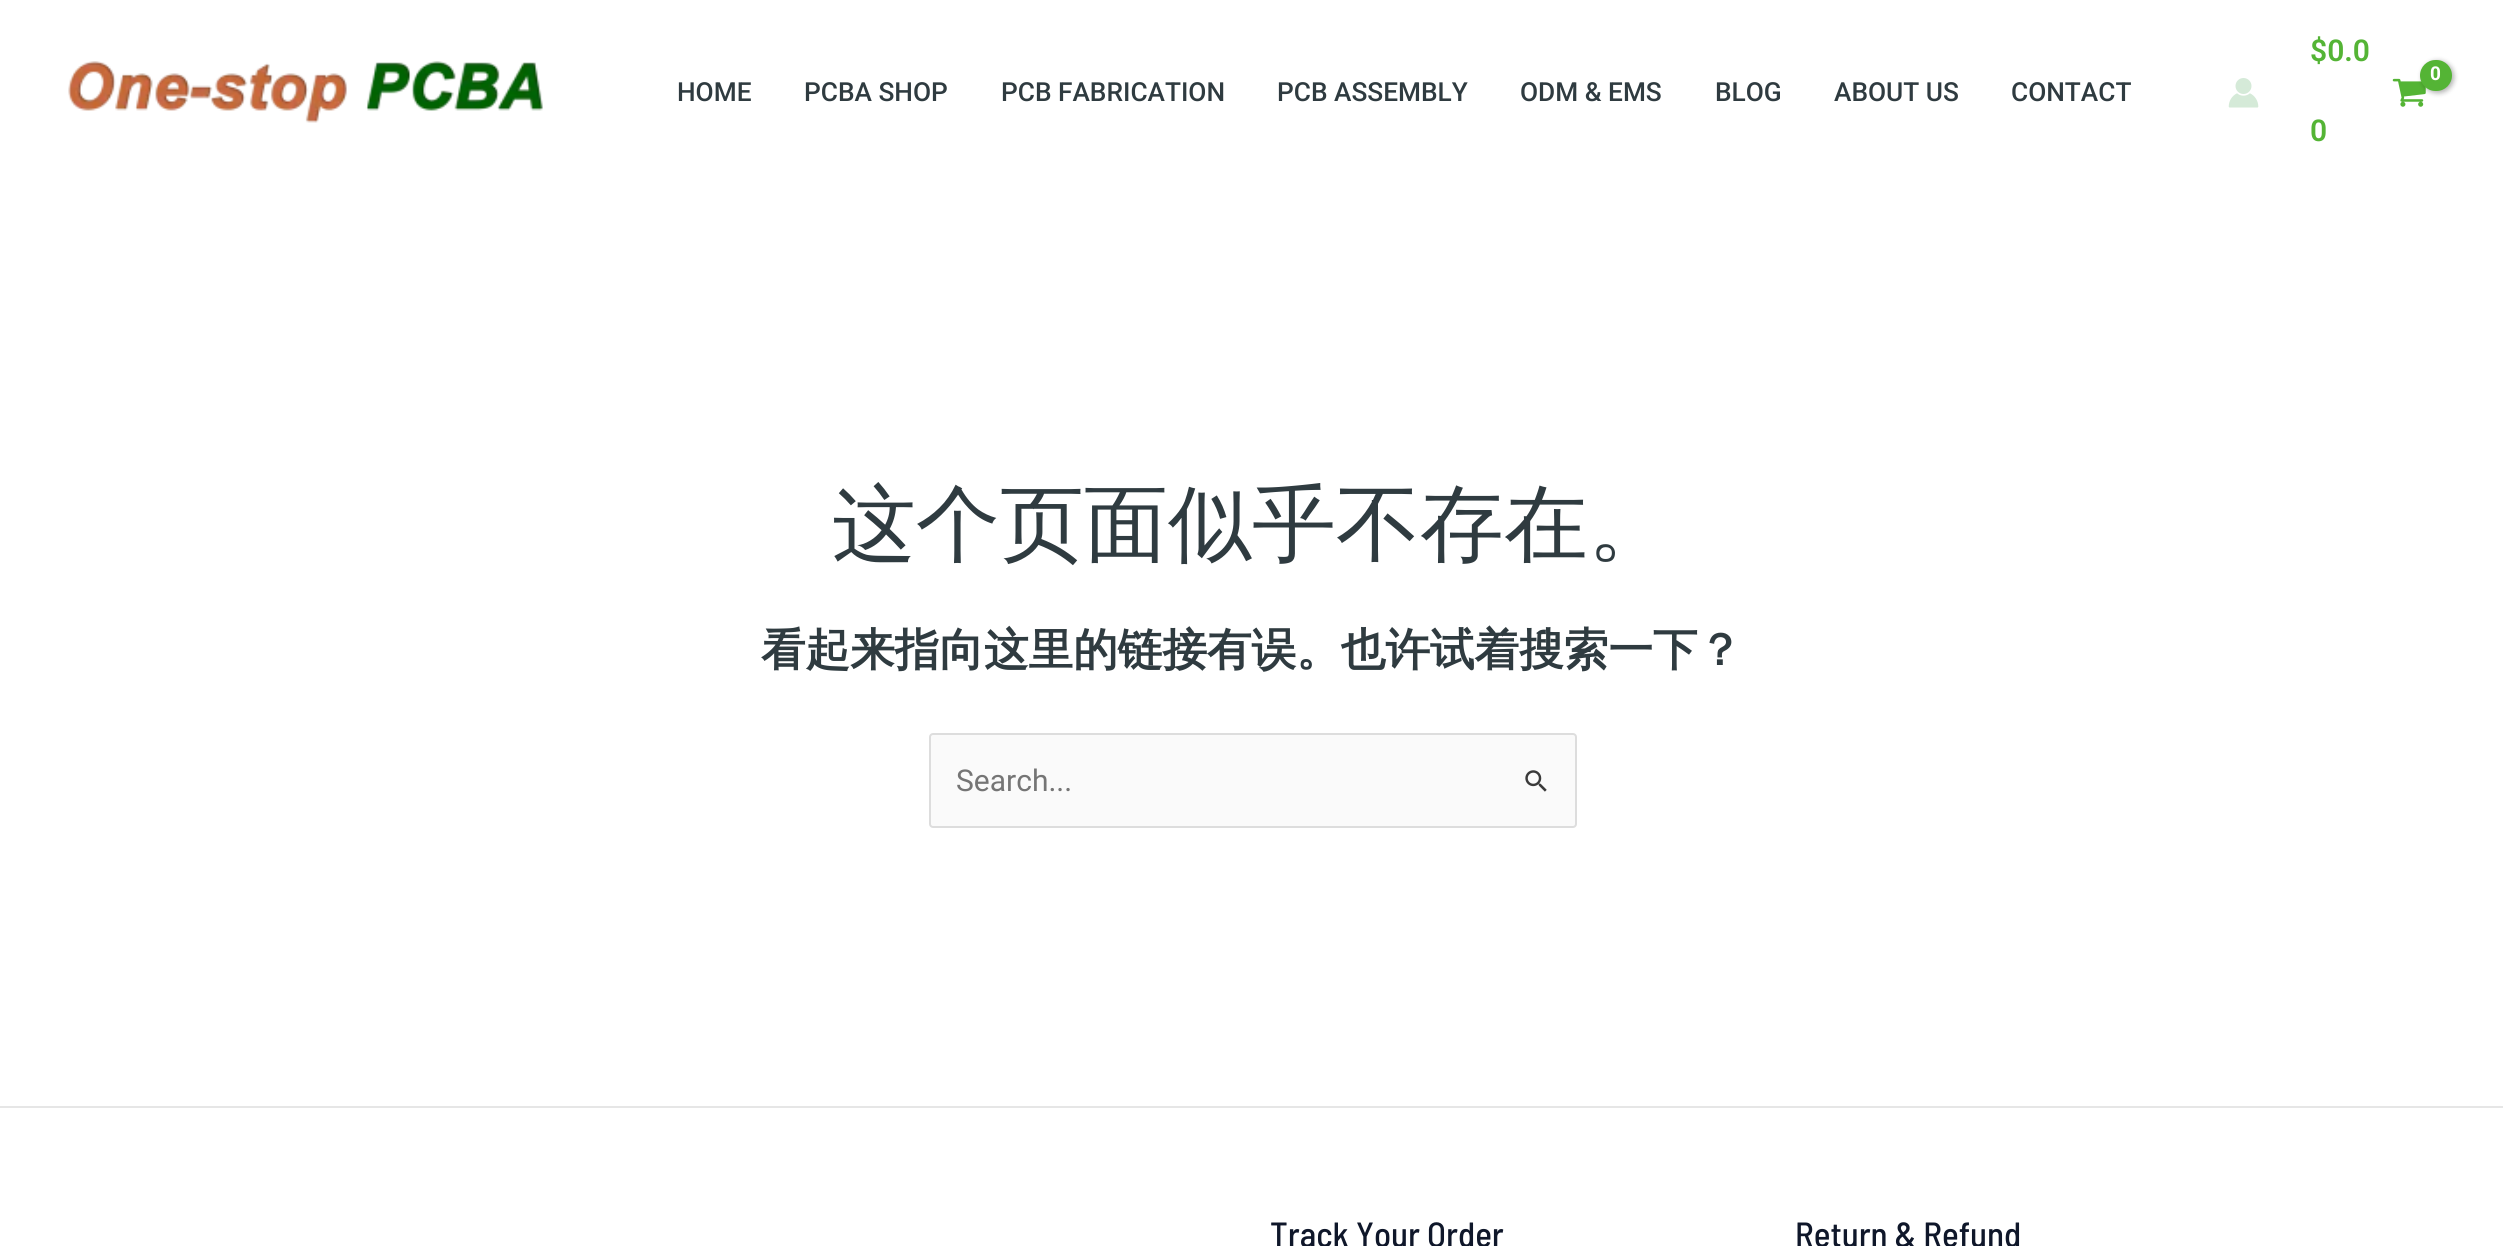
#include <cairo.h>
#include <math.h>
#include <stddef.h>


static void rgb(cairo_t *cr, int r, int g, int b)
{
	cairo_set_source_rgb(cr, r / 255.0, g / 255.0, b / 255.0);
}

static void face(cairo_t *cr, const char *family, double size, int italic, int bold)
{
	cairo_select_font_face(cr, family, italic ? CAIRO_FONT_SLANT_ITALIC : CAIRO_FONT_SLANT_NORMAL,
		bold ? CAIRO_FONT_WEIGHT_BOLD : CAIRO_FONT_WEIGHT_NORMAL);
	cairo_set_font_size(cr, size);
}

static void label(cairo_t *cr, double x, double y, const char *s)
{
	cairo_move_to(cr, x, y);
	cairo_show_text(cr, s);
}

static void tracked(cairo_t *cr, double x, double y, const char *s, double letter, double word)
{
	cairo_move_to(cr, x, y);
	while (*s) {
		char ch[5] = {0};
		int n = 0;
		do ch[n++] = *s++; while ((*s & 0xC0) == 0x80);
		cairo_show_text(cr, ch);
		cairo_rel_move_to(cr, letter + word * (*ch == ' '), 0);
	}
}

static void rect(cairo_t *cr, double x, double y, double w, double h)
{
	cairo_rectangle(cr, x, y, w, h);
	cairo_fill(cr);
}

static void rrect(cairo_t *cr, double x, double y, double w, double h, double r)
{
	cairo_new_sub_path(cr);
	cairo_arc(cr, x + w - r, y + h - r, r, 0, M_PI / 2);
	cairo_arc(cr, x + r, y + h - r, r, M_PI / 2, M_PI);
	cairo_arc(cr, x + r, y + r, r, M_PI, 1.5 * M_PI);
	cairo_arc(cr, x + w - r, y + r, r, 1.5 * M_PI, 2 * M_PI);
	cairo_close_path(cr);
}

static void soft_shadow(cairo_t *cr, double x, double y, double w, double h, double r, double blur, double alpha)
{
	cairo_push_group_with_content(cr, CAIRO_CONTENT_ALPHA);
	cairo_set_operator(cr, CAIRO_OPERATOR_SOURCE);
	for (int i = 15; i >= -15 && fmin(w, h) + blur * i / 3 > 0; i -= 2) {
		double e = blur * i / 6;
		cairo_set_source_rgba(cr, 0, 0, 0, alpha * erfc((i - 1) / 8.5) / 2);
		rrect(cr, x - e, y - e, w + 2 * e, h + 2 * e, fmax(0, fmin(r + e + blur * .6, fmin(w, h) / 2 + e)));
		cairo_fill(cr);
	}
	cairo_pattern_t *soft = cairo_pop_group(cr);
	cairo_mask(cr, soft);
	cairo_pattern_destroy(soft);
}

static void image(cairo_t *cr, const char *path, double x, double y, double w, double h)
{
	cairo_surface_t *image = cairo_image_surface_create_from_png(path);
	cairo_save(cr);
	cairo_set_source_surface(cr, image, x, y);
	cairo_rectangle(cr, x, y, w, h);
	cairo_fill(cr);
	cairo_restore(cr);
	cairo_surface_destroy(image);
}

static void draw(cairo_t *cr) {
	rgb(cr, 255, 255, 255);
	cairo_paint(cr);
	image(cr, "image0.png", 68, 61, 475, 62);
	face(cr, "Roboto Medium", 26.25, 0, 0);
	rgb(cr, 47, 59, 64);
	label(cr, 677, 101, "HOME");
	label(cr, 804, 101, "PCBA SHOP");
	label(cr, 1001, 101, "PCB FABRICATION");
	label(cr, 1277, 101, "PCB ASSEMBLY");
	label(cr, 1520, 101, "ODM & EMS");
	label(cr, 1715, 101, "BLOG");
	label(cr, 1834, 101, "ABOUT US");
	label(cr, 2011, 101, "CONTACT");
	image(cr, "image1.png", 2228, 78, 31, 30);
	face(cr, "Roboto SemiBold", 30, 0, 0);
	rgb(cr, 84, 180, 53);
	label(cr, 2310, 61, "$0.0");
	label(cr, 2310, 141, "0");
	image(cr, "image2.png", 2392, 78, 34, 29);
	rgb(cr, 0, 0, 0);
	soft_shadow(cr, 2422, 61, 32, 32, 16, 2.5, 0.3);
	rgb(cr, 84, 180, 53);
	rrect(cr, 2420, 60, 32, 31, 15.5);
	cairo_fill(cr);
	face(cr, "Roboto", 19, 0, 1);
	rgb(cr, 255, 255, 255);
	tracked(cr, 2430, 80, "0", -1, 0);
	face(cr, "WenQuanYi Zen Hei Medium", 84, 0, 0);
	rgb(cr, 47, 59, 64);
	label(cr, 832, 553, "这个页面似乎不存在。");
	face(cr, "WenQuanYi Zen Hei", 44.6, 0, 1);
	label(cr, 761, 665, "看起来指向这里的链接有误。也许试着搜索一下？");
	rgb(cr, 250, 250, 250);
	rrect(cr, 930, 734, 646, 93, 3);
	cairo_fill_preserve(cr);
	rgb(cr, 221, 221, 221);
	cairo_stroke(cr);
	face(cr, "Roboto", 30, 0, 0);
	rgb(cr, 117, 117, 117);
	label(cr, 956, 791, "Search...");
	image(cr, "image3.png", 1525, 770, 22, 22);
	rgb(cr, 230, 230, 230);
	rect(cr, 0, 1106, 2503, 2);
	face(cr, "Barlow Semi Condensed Medium", 35, 0, 0);
	rgb(cr, 15, 23, 42);
	label(cr, 1270, 1247, "Track Your Order");
	label(cr, 1795, 1247, "Return & Refund");
}

int main(void) {
	cairo_surface_t *surface = cairo_image_surface_create(CAIRO_FORMAT_RGB24, 2503, 1246);
	cairo_t *cr = cairo_create(surface);
	cairo_font_options_t *options = cairo_font_options_create();
	cairo_font_options_set_hint_metrics(options, CAIRO_HINT_METRICS_OFF);
	cairo_font_options_set_hint_style(options, CAIRO_HINT_STYLE_NONE);
	cairo_set_font_options(cr, options);
	cairo_set_miter_limit(cr, 4);
	draw(cr);
	cairo_surface_write_to_png(surface, "render.png");
	cairo_font_options_destroy(options);
	cairo_destroy(cr);
	cairo_surface_destroy(surface);
	return 0;
}
